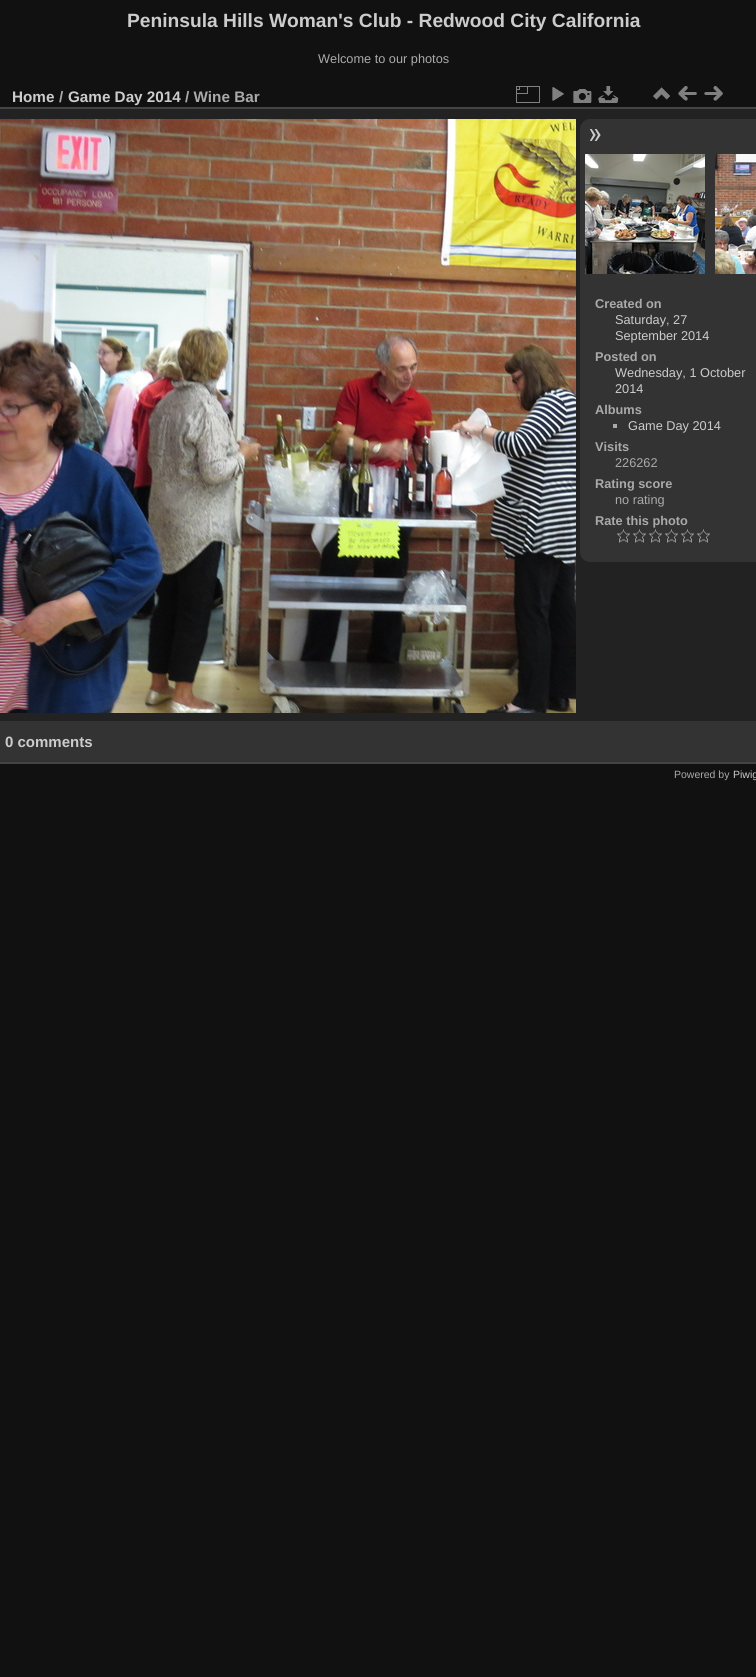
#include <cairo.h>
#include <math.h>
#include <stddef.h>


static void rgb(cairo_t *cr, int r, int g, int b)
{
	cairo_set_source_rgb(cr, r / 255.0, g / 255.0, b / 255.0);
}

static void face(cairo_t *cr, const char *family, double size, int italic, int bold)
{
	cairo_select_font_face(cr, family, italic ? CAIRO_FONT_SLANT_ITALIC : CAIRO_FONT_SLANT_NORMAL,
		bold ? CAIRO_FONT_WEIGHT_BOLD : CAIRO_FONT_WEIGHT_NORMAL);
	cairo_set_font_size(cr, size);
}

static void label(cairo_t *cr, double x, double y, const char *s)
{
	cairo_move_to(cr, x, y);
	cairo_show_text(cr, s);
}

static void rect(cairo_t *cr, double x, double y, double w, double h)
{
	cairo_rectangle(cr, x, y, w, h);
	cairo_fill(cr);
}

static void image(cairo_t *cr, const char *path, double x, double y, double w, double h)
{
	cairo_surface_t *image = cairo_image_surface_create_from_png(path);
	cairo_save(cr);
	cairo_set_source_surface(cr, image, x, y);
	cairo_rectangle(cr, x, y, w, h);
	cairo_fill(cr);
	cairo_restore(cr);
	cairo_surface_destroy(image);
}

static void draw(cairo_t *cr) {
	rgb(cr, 17, 17, 17);
	cairo_paint(cr);
	face(cr, "Liberation Sans", 19.2, 0, 1);
	rgb(cr, 204, 204, 204);
	label(cr, 127, 27, "Peninsula Hills Woman's Club - Redwood City California");
	face(cr, "Liberation Sans", 12.75, 0, 0);
	rgb(cr, 170, 170, 170);
	label(cr, 318, 63, "Welcome to our photos");
	rgb(cr, 34, 34, 34);
	rect(cr, 0, 109, 756, 612);
	rgb(cr, 68, 68, 68);
	rect(cr, 0, 762, 756, 2);
	rect(cr, 0, 107, 756, 2);
	face(cr, "Liberation Sans", 15.25, 0, 1);
	rgb(cr, 204, 204, 204);
	label(cr, 12, 102, "Home");
	rgb(cr, 170, 170, 170);
	label(cr, 59, 102, "/");
	rgb(cr, 204, 204, 204);
	label(cr, 68, 102, "Game Day 2014");
	rgb(cr, 170, 170, 170);
	label(cr, 185, 102, "/ Wine Bar");
	image(cr, "image0.png", 516, 86, 24, 17);
	image(cr, "image1.png", 552, 87, 12, 14);
	image(cr, "image2.png", 573, 89, 19, 14);
	image(cr, "image3.png", 598, 86, 21, 17);
	image(cr, "image4.png", 653, 87, 17, 13);
	image(cr, "image5.png", 678, 86, 19, 15);
	image(cr, "image6.png", 704, 86, 19, 15);
	image(cr, "image7.png", 0, 119, 576, 594);
	rgb(cr, 51, 51, 51);
	cairo_new_path(cr);
	cairo_move_to(cr, 590, 119);
	cairo_line_to(cr, 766, 119);
	cairo_line_to(cr, 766, 562);
	cairo_line_to(cr, 590, 562);
	cairo_curve_to(cr, 584.5, 562, 580, 557.5, 580, 552);
	cairo_line_to(cr, 580, 129);
	cairo_curve_to(cr, 580, 123.5, 584.5, 119, 590, 119);
	cairo_close_path(cr);
	cairo_fill(cr);
	image(cr, "image8.png", 589, 129, 12, 12);
	image(cr, "image9.png", 585, 154, 120, 120);
	image(cr, "image10.png", 715, 154, 41, 120);
	face(cr, "Liberation Sans", 12.75, 0, 1);
	rgb(cr, 170, 170, 170);
	label(cr, 595, 308, "Created on");
	face(cr, "Liberation Sans", 12.75, 0, 0);
	rgb(cr, 204, 204, 204);
	label(cr, 615, 324, "Saturday, 27");
	label(cr, 615, 340, "September 2014");
	face(cr, "Liberation Sans", 12.75, 0, 1);
	rgb(cr, 170, 170, 170);
	label(cr, 595, 361, "Posted on");
	face(cr, "Liberation Sans", 12.75, 0, 0);
	rgb(cr, 204, 204, 204);
	label(cr, 615, 377, "Wednesday, 1 October");
	label(cr, 615, 393, "2014");
	face(cr, "Liberation Sans", 12.75, 0, 1);
	rgb(cr, 170, 170, 170);
	label(cr, 595, 414, "Albums");
	rect(cr, 613, 424, 4, 4);
	face(cr, "Liberation Sans", 12.75, 0, 0);
	rgb(cr, 204, 204, 204);
	label(cr, 628, 430, "Game Day 2014");
	face(cr, "Liberation Sans", 12.75, 0, 1);
	rgb(cr, 170, 170, 170);
	label(cr, 595, 451, "Visits");
	face(cr, "Liberation Sans", 12.75, 0, 0);
	label(cr, 615, 467, "226262");
	face(cr, "Liberation Sans", 12.75, 0, 1);
	label(cr, 595, 488, "Rating score");
	face(cr, "Liberation Sans", 12.75, 0, 0);
	label(cr, 615, 504, "no rating");
	face(cr, "Liberation Sans", 12.75, 0, 1);
	label(cr, 595, 525, "Rate this photo");
	image(cr, "image11.png", 617, 529, 13, 14);
	image(cr, "image11.png", 633, 529, 13, 14);
	image(cr, "image11.png", 649, 529, 13, 14);
	image(cr, "image11.png", 665, 529, 13, 14);
	image(cr, "image11.png", 681, 529, 13, 14);
	image(cr, "image11.png", 697, 529, 13, 14);
	rgb(cr, 51, 51, 51);
	rect(cr, 0, 721, 756, 41);
	face(cr, "Liberation Sans", 15, 0, 1);
	rgb(cr, 204, 204, 204);
	label(cr, 5, 747, "0 comments");
	face(cr, "Liberation Sans", 10.5, 0, 0);
	rgb(cr, 170, 170, 170);
	label(cr, 674, 778, "Powered by");
	rgb(cr, 204, 204, 204);
	label(cr, 733, 778, "Piwig");
}

int main(void) {
	cairo_surface_t *surface = cairo_image_surface_create(CAIRO_FORMAT_RGB24, 756, 1677);
	cairo_t *cr = cairo_create(surface);
	cairo_font_options_t *options = cairo_font_options_create();
	cairo_font_options_set_hint_metrics(options, CAIRO_HINT_METRICS_OFF);
	cairo_font_options_set_hint_style(options, CAIRO_HINT_STYLE_NONE);
	cairo_set_font_options(cr, options);
	cairo_set_miter_limit(cr, 4);
	draw(cr);
	cairo_surface_write_to_png(surface, "render.png");
	cairo_font_options_destroy(options);
	cairo_destroy(cr);
	cairo_surface_destroy(surface);
	return 0;
}
